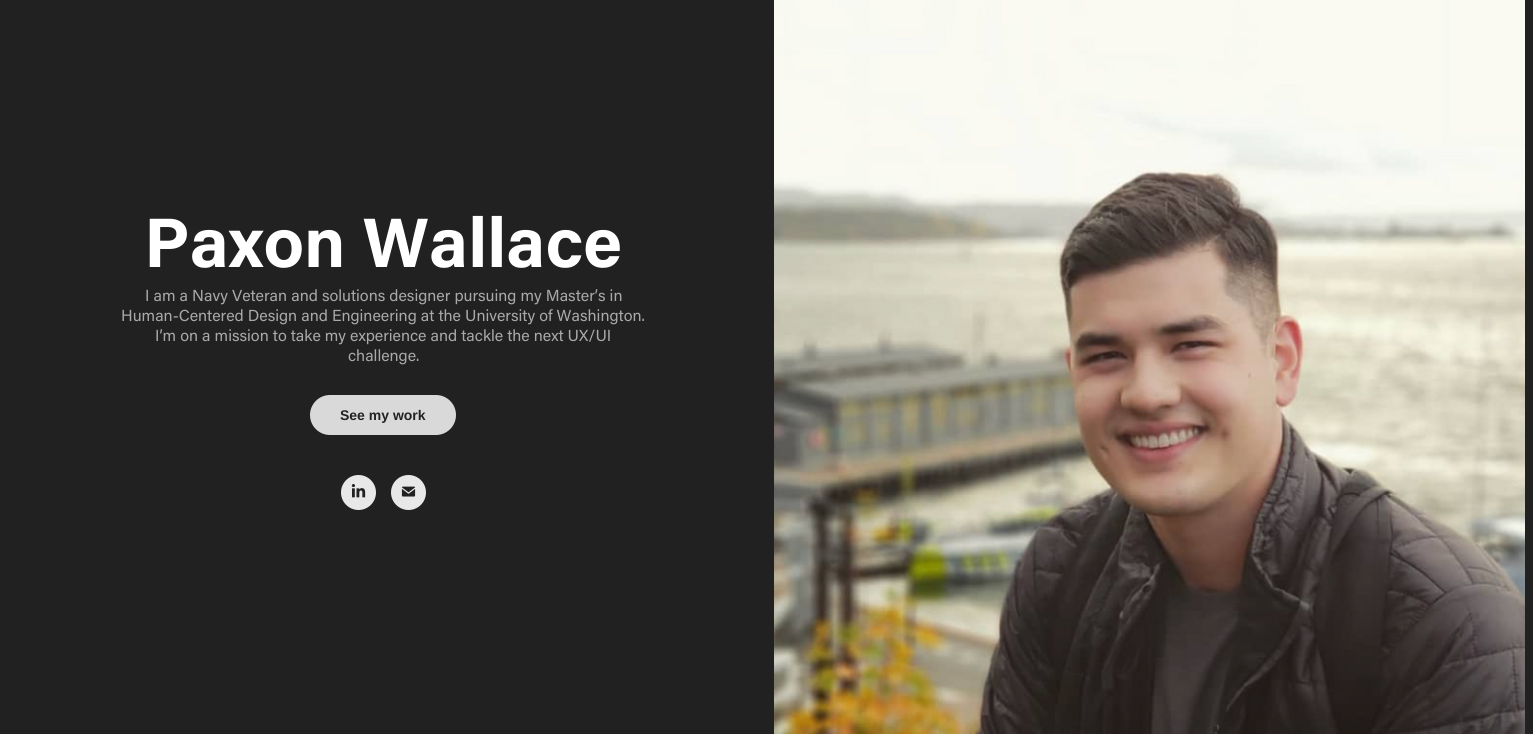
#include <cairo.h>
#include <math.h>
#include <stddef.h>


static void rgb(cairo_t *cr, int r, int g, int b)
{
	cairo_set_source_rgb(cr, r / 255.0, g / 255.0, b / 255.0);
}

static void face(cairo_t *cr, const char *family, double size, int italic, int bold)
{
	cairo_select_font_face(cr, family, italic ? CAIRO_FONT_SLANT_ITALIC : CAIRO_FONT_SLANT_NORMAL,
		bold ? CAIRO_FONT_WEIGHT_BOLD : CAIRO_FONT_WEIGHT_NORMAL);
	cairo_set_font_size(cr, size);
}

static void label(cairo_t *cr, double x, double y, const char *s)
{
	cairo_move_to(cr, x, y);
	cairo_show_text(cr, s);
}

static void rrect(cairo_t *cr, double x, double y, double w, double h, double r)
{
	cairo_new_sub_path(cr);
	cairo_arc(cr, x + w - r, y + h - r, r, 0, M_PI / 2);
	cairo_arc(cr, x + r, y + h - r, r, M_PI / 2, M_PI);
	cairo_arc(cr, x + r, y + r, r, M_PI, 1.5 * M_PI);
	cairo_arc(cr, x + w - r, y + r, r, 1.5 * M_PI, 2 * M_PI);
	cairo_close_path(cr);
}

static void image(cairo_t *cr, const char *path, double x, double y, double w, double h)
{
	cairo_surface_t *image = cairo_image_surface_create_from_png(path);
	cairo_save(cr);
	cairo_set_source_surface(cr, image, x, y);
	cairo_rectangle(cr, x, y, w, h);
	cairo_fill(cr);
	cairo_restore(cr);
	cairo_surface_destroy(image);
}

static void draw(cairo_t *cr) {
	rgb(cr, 33, 33, 33);
	cairo_paint(cr);
	face(cr, "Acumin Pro", 70, 0, 1);
	rgb(cr, 255, 255, 255);
	label(cr, 144, 267, "Paxon Wallace");
	face(cr, "Acumin Pro", 16, 0, 0);
	rgb(cr, 169, 169, 169);
	label(cr, 145, 301, "I am a Navy Veteran and solutions designer pursuing my Master’s in");
	label(cr, 121, 321, "Human-Centered Design and Engineering at the University of Washington.");
	label(cr, 155, 341, "I’m on a mission to take my experience and tackle the next UX/UI");
	label(cr, 348, 361, "challenge.");
	rgb(cr, 217, 217, 217);
	rrect(cr, 310, 395, 146, 40, 20);
	cairo_fill(cr);
	face(cr, "Liberation Sans", 14, 0, 1);
	rgb(cr, 34, 34, 34);
	label(cr, 340, 420, "See my work");
	rgb(cr, 232, 232, 232);
	cairo_new_path(cr);
	cairo_arc(cr, 358.5, 492.5, 17.5, 0, 2 * M_PI);
	cairo_fill(cr);
	image(cr, "image0.png", 351, 484, 15, 14);
	cairo_arc(cr, 408.5, 492.5, 17.5, 0, 2 * M_PI);
	cairo_fill(cr);
	image(cr, "image1.png", 401, 486, 15, 11);
	image(cr, "image2.png", 774, 0, 751, 734);
}

int main(void) {
	cairo_surface_t *surface = cairo_image_surface_create(CAIRO_FORMAT_RGB24, 1533, 734);
	cairo_t *cr = cairo_create(surface);
	cairo_font_options_t *options = cairo_font_options_create();
	cairo_font_options_set_hint_metrics(options, CAIRO_HINT_METRICS_OFF);
	cairo_font_options_set_hint_style(options, CAIRO_HINT_STYLE_NONE);
	cairo_set_font_options(cr, options);
	cairo_set_miter_limit(cr, 4);
	draw(cr);
	cairo_surface_write_to_png(surface, "render.png");
	cairo_font_options_destroy(options);
	cairo_destroy(cr);
	cairo_surface_destroy(surface);
	return 0;
}
